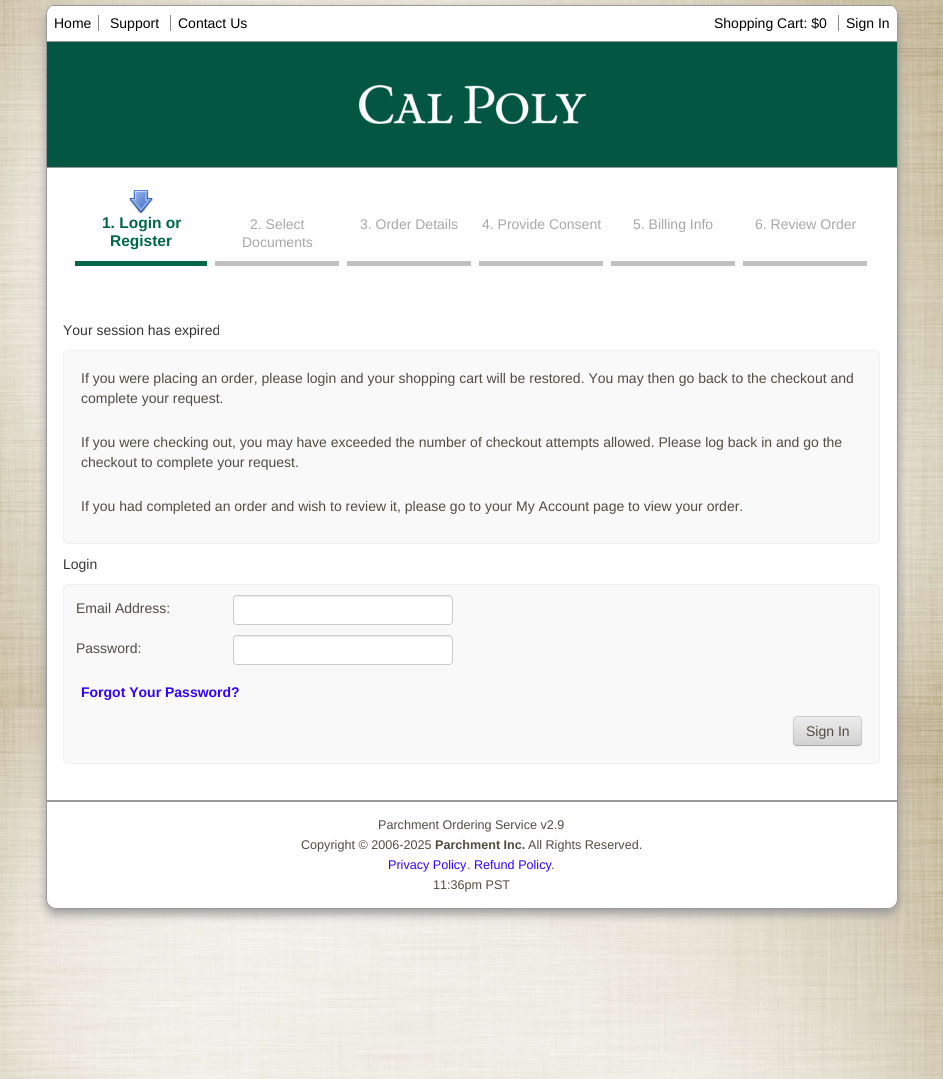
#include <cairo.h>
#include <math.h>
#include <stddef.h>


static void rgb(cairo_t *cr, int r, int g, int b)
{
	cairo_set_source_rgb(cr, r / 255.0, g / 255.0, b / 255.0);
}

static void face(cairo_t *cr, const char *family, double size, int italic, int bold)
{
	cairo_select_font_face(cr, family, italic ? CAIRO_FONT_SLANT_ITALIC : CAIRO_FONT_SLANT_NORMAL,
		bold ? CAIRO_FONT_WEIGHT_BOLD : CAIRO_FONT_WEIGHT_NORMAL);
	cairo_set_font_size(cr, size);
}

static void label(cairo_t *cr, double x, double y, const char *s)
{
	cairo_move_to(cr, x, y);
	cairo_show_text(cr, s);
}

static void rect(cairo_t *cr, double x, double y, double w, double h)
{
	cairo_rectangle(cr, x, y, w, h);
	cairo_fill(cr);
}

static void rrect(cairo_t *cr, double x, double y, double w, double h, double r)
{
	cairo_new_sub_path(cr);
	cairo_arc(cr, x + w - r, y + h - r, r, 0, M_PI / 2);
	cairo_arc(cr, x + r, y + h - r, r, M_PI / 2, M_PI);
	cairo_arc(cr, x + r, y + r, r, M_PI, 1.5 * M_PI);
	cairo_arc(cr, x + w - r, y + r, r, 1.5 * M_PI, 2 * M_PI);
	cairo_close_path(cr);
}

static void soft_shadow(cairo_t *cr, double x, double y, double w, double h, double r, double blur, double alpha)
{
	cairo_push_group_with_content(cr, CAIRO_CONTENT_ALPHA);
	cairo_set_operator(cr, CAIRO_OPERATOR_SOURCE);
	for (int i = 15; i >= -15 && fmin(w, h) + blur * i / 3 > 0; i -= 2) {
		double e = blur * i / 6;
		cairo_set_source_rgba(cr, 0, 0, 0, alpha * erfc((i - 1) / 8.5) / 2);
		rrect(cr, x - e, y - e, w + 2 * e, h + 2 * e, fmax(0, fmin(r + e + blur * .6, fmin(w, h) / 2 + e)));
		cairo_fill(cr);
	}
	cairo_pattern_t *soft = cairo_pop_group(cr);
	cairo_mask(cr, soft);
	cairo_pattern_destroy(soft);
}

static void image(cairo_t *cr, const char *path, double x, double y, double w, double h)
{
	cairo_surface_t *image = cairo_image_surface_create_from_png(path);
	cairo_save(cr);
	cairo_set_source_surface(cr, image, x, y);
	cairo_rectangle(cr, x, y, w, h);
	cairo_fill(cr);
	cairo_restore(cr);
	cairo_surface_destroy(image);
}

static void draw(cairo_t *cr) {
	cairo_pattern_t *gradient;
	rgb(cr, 255, 255, 255);
	cairo_paint(cr);
	image(cr, "image0.png", 0, 0, 943, 1079);
	rgb(cr, 153, 153, 153);
	soft_shadow(cr, 46, 10, 852, 904, 10, 5, 1);
	rgb(cr, 255, 255, 255);
	rrect(cr, 46, 5, 852, 904, 10);
	cairo_fill(cr);
	rgb(cr, 153, 153, 153);
	cairo_set_fill_rule(cr, CAIRO_FILL_RULE_EVEN_ODD);
	cairo_new_path(cr);
	cairo_move_to(cr, 56, 5);
	cairo_line_to(cr, 888, 5);
	cairo_curve_to(cr, 894, 5, 898, 9, 898, 15);
	cairo_line_to(cr, 898, 899);
	cairo_curve_to(cr, 898, 905, 894, 909, 888, 909);
	cairo_line_to(cr, 56, 909);
	cairo_curve_to(cr, 50, 909, 46, 905, 46, 899);
	cairo_line_to(cr, 46, 15);
	cairo_curve_to(cr, 46, 9, 50, 5, 56, 5);
	cairo_close_path(cr);
	cairo_move_to(cr, 56, 5);
	cairo_line_to(cr, 888, 5);
	cairo_curve_to(cr, 893, 5, 897, 9, 897, 15);
	cairo_line_to(cr, 897, 899);
	cairo_curve_to(cr, 897, 904, 893, 908, 888, 908);
	cairo_line_to(cr, 56, 908);
	cairo_curve_to(cr, 51, 908, 47, 904, 47, 899);
	cairo_line_to(cr, 47, 15);
	cairo_curve_to(cr, 47, 9, 51, 5, 56, 5);
	cairo_close_path(cr);
	cairo_fill(cr);
	rgb(cr, 255, 255, 255);
	cairo_new_path(cr);
	cairo_move_to(cr, 57, 5);
	cairo_line_to(cr, 887, 5);
	cairo_curve_to(cr, 892.5, 5, 897, 9.5, 897, 15);
	cairo_line_to(cr, 897, 42);
	cairo_line_to(cr, 47, 42);
	cairo_line_to(cr, 47, 15);
	cairo_curve_to(cr, 47, 9.5, 51.5, 5, 57, 5);
	cairo_close_path(cr);
	cairo_fill(cr);
	rgb(cr, 153, 153, 153);
	rect(cr, 52, 5, 840, 1);
	rect(cr, 47, 41, 850, 1);
	face(cr, "Liberation Sans", 14, 0, 0);
	rgb(cr, 0, 0, 0);
	label(cr, 54, 28, "Home");
	rgb(cr, 136, 136, 136);
	rect(cr, 98, 15, 1, 16);
	rgb(cr, 0, 0, 0);
	label(cr, 110, 28, "Support");
	label(cr, 178, 28, "Contact Us");
	rgb(cr, 136, 136, 136);
	rect(cr, 170, 15, 1, 16);
	rgb(cr, 0, 0, 0);
	label(cr, 714, 28, "Shopping Cart: $0");
	rgb(cr, 136, 136, 136);
	rect(cr, 838, 15, 1, 16);
	rgb(cr, 0, 0, 0);
	label(cr, 846, 28, "Sign In");
	image(cr, "image1.png", 47, 42, 850, 125);
	rgb(cr, 153, 153, 153);
	rect(cr, 47, 167, 850, 1);
	image(cr, "image2.png", 129, 190, 24, 24);
	face(cr, "Liberation Sans", 15.5, 0, 1);
	rgb(cr, 0, 102, 71);
	label(cr, 102, 228, "1. Login or");
	label(cr, 110, 246, "Register");
	face(cr, "Liberation Sans", 14, 0, 0);
	rgb(cr, 167, 167, 167);
	label(cr, 250, 229, "2. Select");
	label(cr, 242, 247, "Documents");
	label(cr, 360, 229, "3. Order Details");
	label(cr, 482, 229, "4. Provide Consent");
	label(cr, 633, 229, "5. Billing Info");
	label(cr, 755, 229, "6. Review Order");
	rgb(cr, 0, 102, 71);
	rect(cr, 75, 261, 132, 5);
	rgb(cr, 192, 192, 192);
	rect(cr, 215, 261, 124, 5);
	rect(cr, 347, 261, 124, 5);
	rect(cr, 479, 261, 124, 5);
	rect(cr, 611, 261, 124, 5);
	rect(cr, 743, 261, 124, 5);
	rgb(cr, 51, 51, 51);
	label(cr, 63, 335, "Your session has expired");
	rgb(cr, 249, 249, 249);
	rrect(cr, 63.5, 350.5, 816, 193, 4.5);
	cairo_fill_preserve(cr);
	rgb(cr, 241, 241, 241);
	cairo_set_line_width(cr, 1);
	cairo_stroke(cr);
	rgb(cr, 81, 76, 64);
	label(cr, 81, 383, "If you were placing an order, please login and your shopping cart will be restored. You may then go back to the checkout and");
	label(cr, 81, 403, "complete your request.");
	label(cr, 81, 447, "If you were checking out, you may have exceeded the number of checkout attempts allowed. Please log back in and go the");
	label(cr, 81, 467, "checkout to complete your request.");
	label(cr, 81, 511, "If you had completed an order and wish to review it, please go to your My Account page to view your order.");
	rgb(cr, 51, 51, 51);
	label(cr, 63, 569, "Login");
	rgb(cr, 249, 249, 249);
	rrect(cr, 63.5, 584.5, 816, 179, 4.5);
	cairo_fill_preserve(cr);
	rgb(cr, 241, 241, 241);
	cairo_stroke(cr);
	rgb(cr, 81, 76, 64);
	label(cr, 76, 613, "Email Address:");
	rgb(cr, 255, 255, 255);
	rrect(cr, 233, 595, 220, 30, 4);
	cairo_fill(cr);
	rgb(cr, 236, 236, 236);
	cairo_set_fill_rule(cr, CAIRO_FILL_RULE_WINDING);
	cairo_new_path(cr);
	cairo_move_to(cr, 237, 597);
	cairo_line_to(cr, 449, 597);
	cairo_curve_to(cr, 451, 597, 452, 598, 452, 600);
	cairo_line_to(cr, 452, 599);
	cairo_curve_to(cr, 452, 597, 451, 596, 449, 596);
	cairo_line_to(cr, 237, 596);
	cairo_curve_to(cr, 235, 596, 234, 597, 234, 599);
	cairo_line_to(cr, 234, 600);
	cairo_curve_to(cr, 234, 598, 235, 597, 237, 597);
	cairo_close_path(cr);
	cairo_fill(cr);
	rrect(cr, 233.5, 595.5, 219, 29, 3.5);
	rgb(cr, 204, 204, 204);
	cairo_stroke(cr);
	rgb(cr, 81, 76, 64);
	label(cr, 76, 653, "Password:");
	rgb(cr, 255, 255, 255);
	rrect(cr, 233, 635, 220, 30, 4);
	cairo_fill(cr);
	rgb(cr, 236, 236, 236);
	cairo_new_path(cr);
	cairo_move_to(cr, 237, 637);
	cairo_line_to(cr, 449, 637);
	cairo_curve_to(cr, 451, 637, 452, 638, 452, 640);
	cairo_line_to(cr, 452, 639);
	cairo_curve_to(cr, 452, 637, 451, 636, 449, 636);
	cairo_line_to(cr, 237, 636);
	cairo_curve_to(cr, 235, 636, 234, 637, 234, 639);
	cairo_line_to(cr, 234, 640);
	cairo_curve_to(cr, 234, 638, 235, 637, 237, 637);
	cairo_close_path(cr);
	cairo_fill(cr);
	rrect(cr, 233.5, 635.5, 219, 29, 3.5);
	rgb(cr, 204, 204, 204);
	cairo_stroke(cr);
	face(cr, "Liberation Sans", 14, 0, 1);
	rgb(cr, 51, 0, 255);
	label(cr, 81, 697, "Forgot Your Password?");
	rgb(cr, 0, 0, 0);
	soft_shadow(cr, 793, 717, 69, 30, 4, 1, 0.05);
	rgb(cr, 225, 225, 225);
	rrect(cr, 793, 716, 69, 30, 4);
	cairo_fill(cr);
	cairo_save(cr);
	rrect(cr, 793, 716, 69, 30, 4);
	cairo_clip(cr);
	gradient = cairo_pattern_create_linear(828, 717, 828, 745);
	cairo_pattern_add_color_stop_rgba(gradient, 0, 0.922, 0.922, 0.922, 1);
	cairo_pattern_add_color_stop_rgba(gradient, 1, 0.824, 0.824, 0.824, 1);
	cairo_set_source(cr, gradient);
	cairo_pattern_destroy(gradient);
	rect(cr, 793, 717, 69, 28);
	cairo_restore(cr);
	cairo_set_source_rgba(cr, 1, 1, 1, 0.2);
	cairo_new_path(cr);
	cairo_move_to(cr, 797, 718);
	cairo_line_to(cr, 858, 718);
	cairo_curve_to(cr, 860, 718, 861, 719, 861, 721);
	cairo_curve_to(cr, 861, 714, 852, 717, 848, 717);
	cairo_line_to(cr, 807, 717);
	cairo_curve_to(cr, 803, 717, 794, 714, 794, 721);
	cairo_curve_to(cr, 794, 719, 795, 718, 797, 718);
	cairo_close_path(cr);
	cairo_fill(cr);
	cairo_new_path(cr);
	cairo_move_to(cr, 860.5, 744.5);
	cairo_line_to(cr, 858.5, 745.5);
	cairo_line_to(cr, 796.5, 745.5);
	cairo_line_to(cr, 794.5, 744.5);
	cairo_set_source_rgba(cr, 0, 0, 0, 0.25);
	cairo_stroke(cr);
	cairo_new_path(cr);
	cairo_move_to(cr, 794.5, 744.5);
	cairo_curve_to(cr, 792.5, 742.5, 793.5, 734, 793.5, 731);
	cairo_curve_to(cr, 793.5, 715, 791, 716.5, 807, 716.5);
	cairo_line_to(cr, 848, 716.5);
	cairo_curve_to(cr, 864, 716.5, 861.5, 715, 861.5, 731);
	cairo_curve_to(cr, 861.5, 734, 862.5, 742.5, 860.5, 744.5);
	cairo_set_source_rgba(cr, 0, 0, 0, 0.1);
	cairo_stroke(cr);
	face(cr, "Liberation Sans", 14, 0, 0);
	rgb(cr, 81, 76, 64);
	label(cr, 806, 736, "Sign In");
	rgb(cr, 153, 153, 153);
	rect(cr, 47, 800, 850, 2);
	face(cr, "Liberation Sans", 12.6, 0, 0);
	rgb(cr, 81, 76, 64);
	label(cr, 378, 829, "Parchment Ordering Service v2.9");
	label(cr, 301, 849, "Copyright © 2006-2025");
	face(cr, "Liberation Sans", 12.6, 0, 1);
	label(cr, 435, 849, "Parchment Inc.");
	face(cr, "Liberation Sans", 12.6, 0, 0);
	label(cr, 528, 849, "All Rights Reserved.");
	rgb(cr, 51, 0, 255);
	label(cr, 388, 869, "Privacy Policy");
	rgb(cr, 81, 76, 64);
	label(cr, 467, 869, ".");
	rgb(cr, 51, 0, 255);
	label(cr, 474, 869, "Refund Policy");
	rgb(cr, 81, 76, 64);
	label(cr, 551, 869, ".");
	label(cr, 433, 889, "11:36pm PST");
}

int main(void) {
	cairo_surface_t *surface = cairo_image_surface_create(CAIRO_FORMAT_RGB24, 943, 1079);
	cairo_t *cr = cairo_create(surface);
	cairo_font_options_t *options = cairo_font_options_create();
	cairo_font_options_set_hint_metrics(options, CAIRO_HINT_METRICS_OFF);
	cairo_font_options_set_hint_style(options, CAIRO_HINT_STYLE_NONE);
	cairo_set_font_options(cr, options);
	cairo_set_miter_limit(cr, 4);
	draw(cr);
	cairo_surface_write_to_png(surface, "render.png");
	cairo_font_options_destroy(options);
	cairo_destroy(cr);
	cairo_surface_destroy(surface);
	return 0;
}
